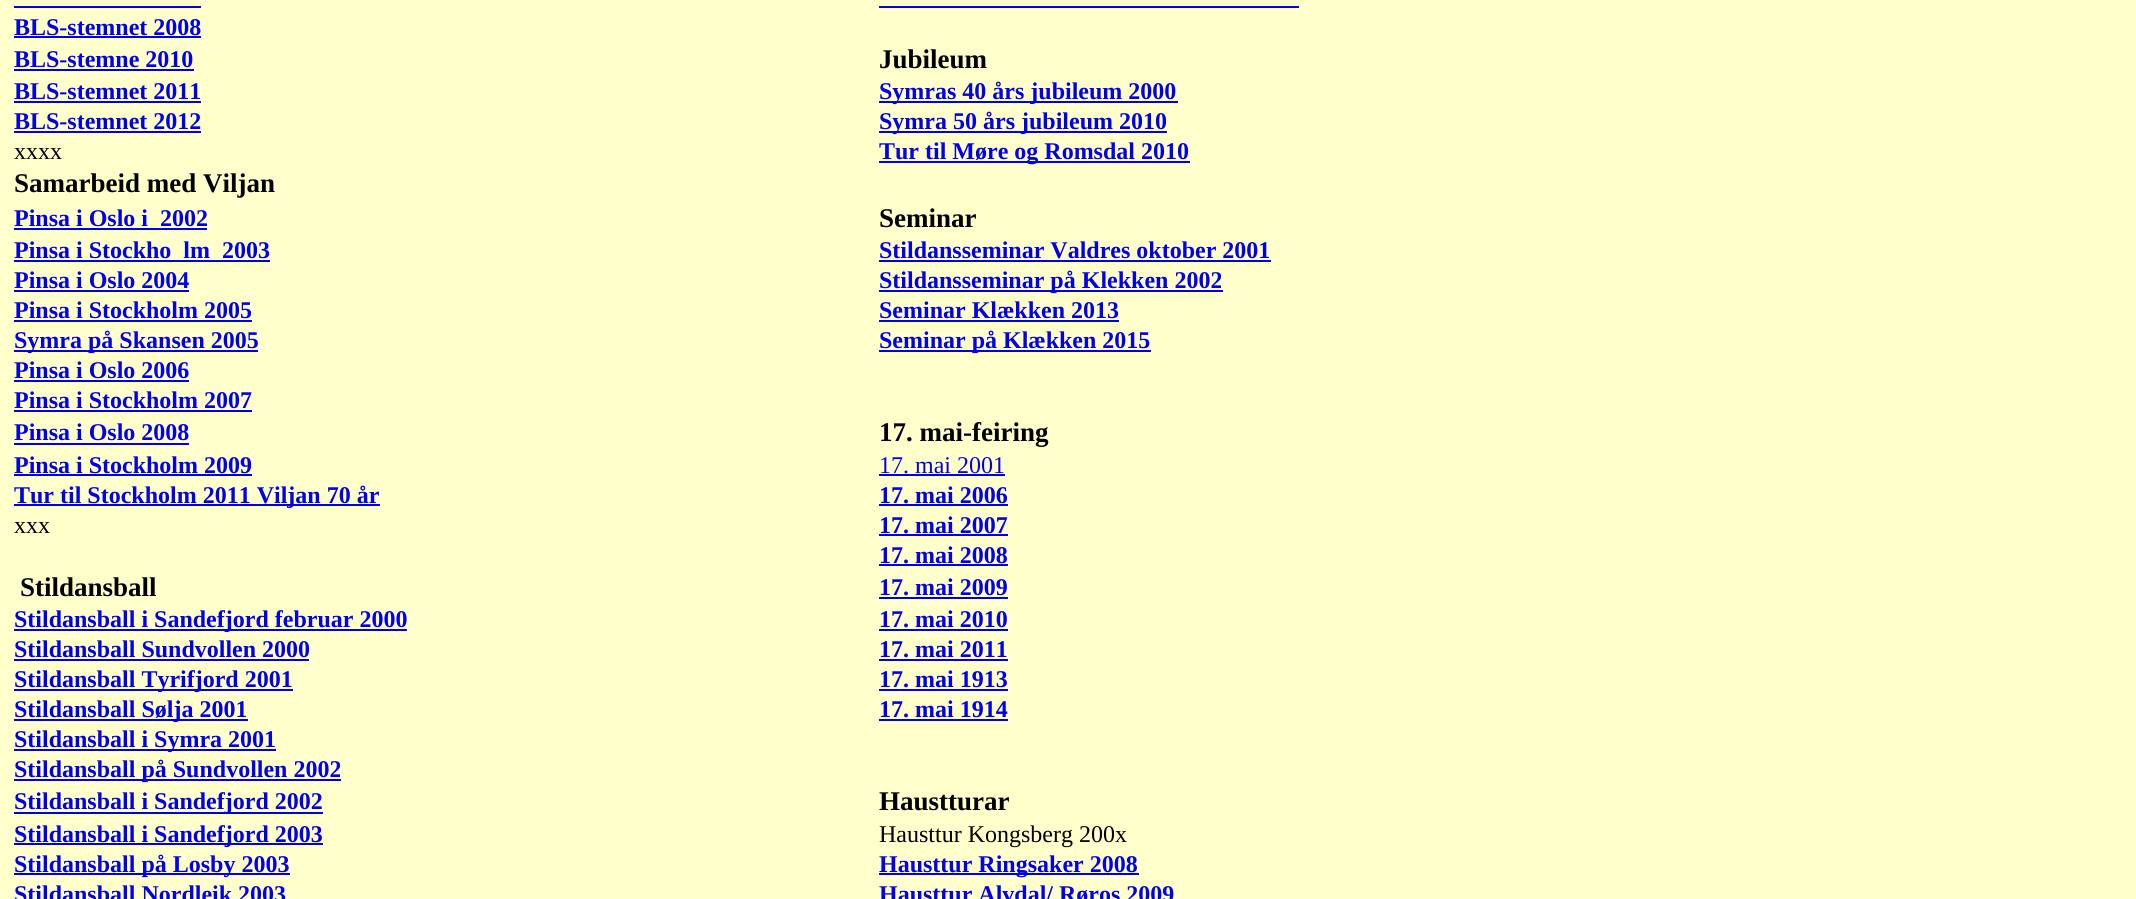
#include <cairo.h>
#include <math.h>
#include <stddef.h>


static void rgb(cairo_t *cr, int r, int g, int b)
{
	cairo_set_source_rgb(cr, r / 255.0, g / 255.0, b / 255.0);
}

static void face(cairo_t *cr, const char *family, double size, int italic, int bold)
{
	cairo_select_font_face(cr, family, italic ? CAIRO_FONT_SLANT_ITALIC : CAIRO_FONT_SLANT_NORMAL,
		bold ? CAIRO_FONT_WEIGHT_BOLD : CAIRO_FONT_WEIGHT_NORMAL);
	cairo_set_font_size(cr, size);
}

static void label(cairo_t *cr, double x, double y, const char *s)
{
	cairo_move_to(cr, x, y);
	cairo_show_text(cr, s);
}

static void rect(cairo_t *cr, double x, double y, double w, double h)
{
	cairo_rectangle(cr, x, y, w, h);
	cairo_fill(cr);
}

static void draw(cairo_t *cr) {
	rgb(cr, 255, 255, 204);
	cairo_paint(cr);
	rgb(cr, 0, 0, 238);
	rect(cr, 14, 6, 187, 2);
	rect(cr, 879, 6, 420, 2);
	face(cr, "Liberation Serif", 24, 0, 1);
	label(cr, 14, 35, "BLS-stemnet 2008");
	rect(cr, 14, 36, 187, 2);
	label(cr, 14, 67, "BLS-stemne 2010");
	rect(cr, 14, 69, 180, 2);
	face(cr, "Liberation Serif", 27, 0, 1);
	rgb(cr, 0, 0, 0);
	label(cr, 879, 68, "Jubileum");
	face(cr, "Liberation Serif", 24, 0, 1);
	rgb(cr, 0, 0, 238);
	label(cr, 14, 99, "BLS-stemnet 2011");
	rect(cr, 14, 101, 187, 2);
	rect(cr, 879, 101, 299, 2);
	label(cr, 879, 99, "Symras 40 års jubileum 2000");
	label(cr, 14, 129, "BLS-stemnet 2012");
	rect(cr, 14, 131, 187, 2);
	rect(cr, 879, 131, 288, 2);
	label(cr, 879, 129, "Symra 50 års jubileum 2010");
	face(cr, "Liberation Serif", 24, 0, 0);
	rgb(cr, 0, 0, 0);
	label(cr, 14, 159, "xxxx");
	rgb(cr, 0, 0, 238);
	rect(cr, 879, 161, 311, 2);
	face(cr, "Liberation Serif", 24, 0, 1);
	label(cr, 879, 159, "Tur til Møre og Romsdal 2010");
	face(cr, "Liberation Serif", 27, 0, 1);
	rgb(cr, 0, 0, 0);
	label(cr, 14, 192, "Samarbeid med Viljan");
	face(cr, "Liberation Serif", 24, 0, 1);
	rgb(cr, 0, 0, 238);
	label(cr, 14, 226, "Pinsa i Oslo i  2002");
	rect(cr, 14, 228, 193, 2);
	face(cr, "Liberation Serif", 27, 0, 1);
	rgb(cr, 0, 0, 0);
	label(cr, 879, 227, "Seminar");
	face(cr, "Liberation Serif", 24, 0, 1);
	rgb(cr, 0, 0, 238);
	label(cr, 14, 258, "Pinsa i Stockho  lm");
	label(cr, 222, 258, "2003");
	rect(cr, 14, 260, 256, 2);
	label(cr, 879, 258, "Stildansseminar Valdres oktober 2001");
	rect(cr, 879, 260, 392, 2);
	label(cr, 14, 288, "Pinsa i Oslo 2004");
	rect(cr, 14, 290, 175, 2);
	rect(cr, 879, 290, 344, 2);
	label(cr, 879, 288, "Stildansseminar på Klekken 2002");
	label(cr, 14, 318, "Pinsa i Stockholm 2005");
	rect(cr, 14, 320, 238, 2);
	label(cr, 879, 318, "Seminar Klækken 2013");
	rect(cr, 879, 320, 240, 2);
	rect(cr, 14, 350, 244, 2);
	label(cr, 14, 348, "Symra på Skansen 2005");
	rect(cr, 879, 350, 272, 2);
	label(cr, 879, 348, "Seminar på Klækken 2015");
	label(cr, 14, 378, "Pinsa i Oslo 2006");
	rect(cr, 14, 380, 175, 2);
	label(cr, 14, 408, "Pinsa i Stockholm 2007");
	rect(cr, 14, 410, 238, 2);
	label(cr, 14, 440, "Pinsa i Oslo 2008");
	rect(cr, 14, 443, 175, 2);
	face(cr, "Liberation Serif", 27, 0, 1);
	rgb(cr, 0, 0, 0);
	label(cr, 879, 441, "17. mai-feiring");
	face(cr, "Liberation Serif", 24, 0, 1);
	rgb(cr, 0, 0, 238);
	label(cr, 14, 473, "Pinsa i Stockholm 2009");
	rect(cr, 14, 474, 238, 2);
	face(cr, "Liberation Serif", 24, 0, 0);
	label(cr, 879, 473, "17. mai 2001");
	rect(cr, 879, 474, 126, 2);
	rect(cr, 14, 504, 366, 2);
	face(cr, "Liberation Serif", 24, 0, 1);
	label(cr, 14, 503, "Tur til Stockholm 2011 Viljan 70 år");
	label(cr, 879, 503, "17. mai 2006");
	rect(cr, 879, 504, 129, 2);
	face(cr, "Liberation Serif", 24, 0, 0);
	rgb(cr, 0, 0, 0);
	label(cr, 14, 533, "xxx");
	face(cr, "Liberation Serif", 24, 0, 1);
	rgb(cr, 0, 0, 238);
	label(cr, 879, 533, "17. mai 2007");
	rect(cr, 879, 534, 129, 2);
	label(cr, 879, 563, "17. mai 2008");
	rect(cr, 879, 564, 129, 2);
	face(cr, "Liberation Serif", 27, 0, 1);
	rgb(cr, 0, 0, 0);
	label(cr, 20, 596, "Stildansball");
	face(cr, "Liberation Serif", 24, 0, 1);
	rgb(cr, 0, 0, 238);
	label(cr, 879, 595, "17. mai 2009");
	rect(cr, 879, 597, 129, 2);
	rect(cr, 14, 629, 393, 2);
	label(cr, 14, 627, "Stildansball i Sandefjord februar 2000");
	label(cr, 879, 627, "17. mai 2010");
	rect(cr, 879, 629, 129, 2);
	label(cr, 14, 657, "Stildansball Sundvollen 2000");
	rect(cr, 14, 659, 295, 2);
	label(cr, 879, 657, "17. mai 2011");
	rect(cr, 879, 659, 129, 2);
	rect(cr, 14, 689, 279, 2);
	label(cr, 14, 687, "Stildansball Tyrifjord 2001");
	label(cr, 879, 687, "17. mai 1913");
	rect(cr, 879, 689, 129, 2);
	rect(cr, 14, 719, 234, 2);
	label(cr, 14, 717, "Stildansball Sølja 2001");
	label(cr, 879, 717, "17. mai 1914");
	rect(cr, 879, 719, 129, 2);
	rect(cr, 14, 749, 262, 2);
	label(cr, 14, 747, "Stildansball i Symra 2001");
	rect(cr, 14, 779, 327, 2);
	label(cr, 14, 777, "Stildansball på Sundvollen 2002");
	rect(cr, 14, 812, 309, 2);
	label(cr, 14, 809, "Stildansball i Sandefjord 2002");
	face(cr, "Liberation Serif", 27, 0, 1);
	rgb(cr, 0, 0, 0);
	label(cr, 879, 810, "Haustturar");
	rgb(cr, 0, 0, 238);
	rect(cr, 14, 843, 309, 2);
	face(cr, "Liberation Serif", 24, 0, 1);
	label(cr, 14, 842, "Stildansball i Sandefjord 2003");
	face(cr, "Liberation Serif", 24, 0, 0);
	rgb(cr, 0, 0, 0);
	label(cr, 879, 842, "Hausttur Kongsberg 200x");
	rgb(cr, 0, 0, 238);
	rect(cr, 14, 873, 276, 2);
	face(cr, "Liberation Serif", 24, 0, 1);
	label(cr, 14, 872, "Stildansball på Losby 2003");
	rect(cr, 879, 873, 260, 2);
	label(cr, 879, 872, "Hausttur Ringsaker 2008");
	label(cr, 14, 902, "Stildansball Nordleik 2003");
	label(cr, 879, 902, "Hausttur Alvdal/ Røros 2009");
}

int main(void) {
	cairo_surface_t *surface = cairo_image_surface_create(CAIRO_FORMAT_RGB24, 2136, 899);
	cairo_t *cr = cairo_create(surface);
	cairo_font_options_t *options = cairo_font_options_create();
	cairo_font_options_set_hint_metrics(options, CAIRO_HINT_METRICS_OFF);
	cairo_font_options_set_hint_style(options, CAIRO_HINT_STYLE_NONE);
	cairo_set_font_options(cr, options);
	cairo_set_miter_limit(cr, 4);
	draw(cr);
	cairo_surface_write_to_png(surface, "render.png");
	cairo_font_options_destroy(options);
	cairo_destroy(cr);
	cairo_surface_destroy(surface);
	return 0;
}
